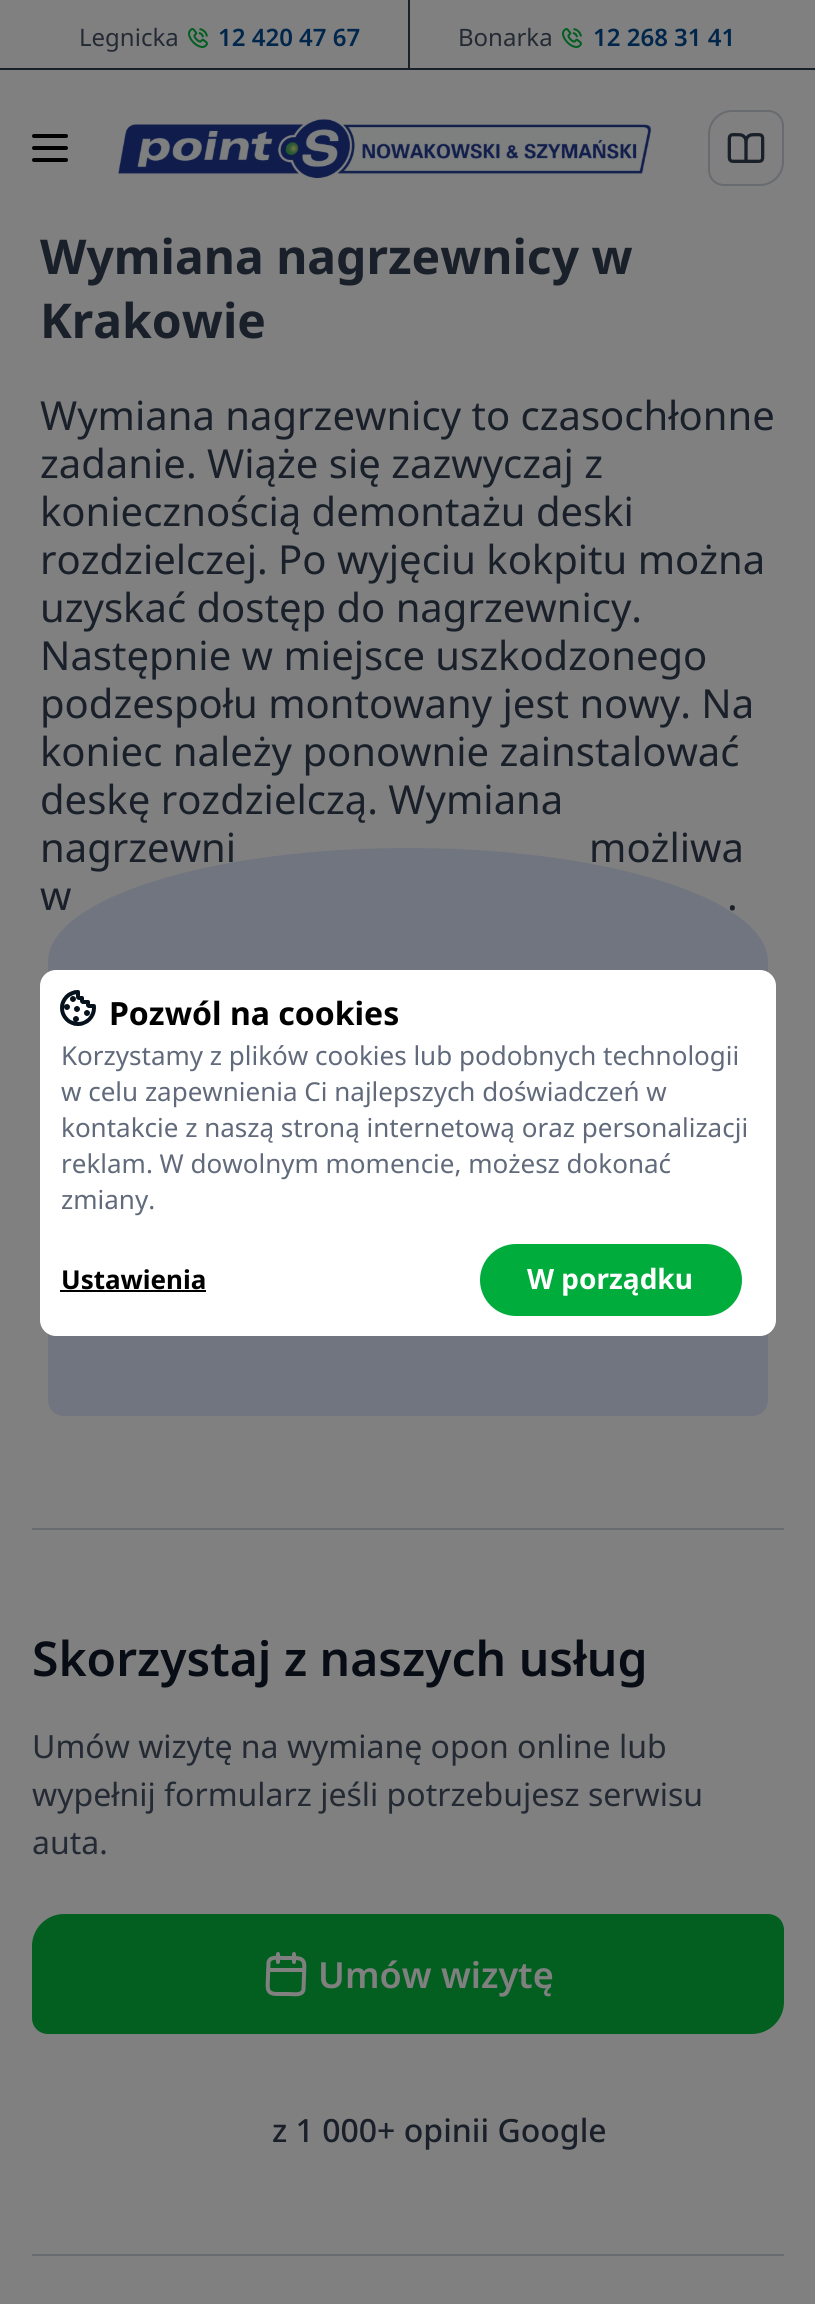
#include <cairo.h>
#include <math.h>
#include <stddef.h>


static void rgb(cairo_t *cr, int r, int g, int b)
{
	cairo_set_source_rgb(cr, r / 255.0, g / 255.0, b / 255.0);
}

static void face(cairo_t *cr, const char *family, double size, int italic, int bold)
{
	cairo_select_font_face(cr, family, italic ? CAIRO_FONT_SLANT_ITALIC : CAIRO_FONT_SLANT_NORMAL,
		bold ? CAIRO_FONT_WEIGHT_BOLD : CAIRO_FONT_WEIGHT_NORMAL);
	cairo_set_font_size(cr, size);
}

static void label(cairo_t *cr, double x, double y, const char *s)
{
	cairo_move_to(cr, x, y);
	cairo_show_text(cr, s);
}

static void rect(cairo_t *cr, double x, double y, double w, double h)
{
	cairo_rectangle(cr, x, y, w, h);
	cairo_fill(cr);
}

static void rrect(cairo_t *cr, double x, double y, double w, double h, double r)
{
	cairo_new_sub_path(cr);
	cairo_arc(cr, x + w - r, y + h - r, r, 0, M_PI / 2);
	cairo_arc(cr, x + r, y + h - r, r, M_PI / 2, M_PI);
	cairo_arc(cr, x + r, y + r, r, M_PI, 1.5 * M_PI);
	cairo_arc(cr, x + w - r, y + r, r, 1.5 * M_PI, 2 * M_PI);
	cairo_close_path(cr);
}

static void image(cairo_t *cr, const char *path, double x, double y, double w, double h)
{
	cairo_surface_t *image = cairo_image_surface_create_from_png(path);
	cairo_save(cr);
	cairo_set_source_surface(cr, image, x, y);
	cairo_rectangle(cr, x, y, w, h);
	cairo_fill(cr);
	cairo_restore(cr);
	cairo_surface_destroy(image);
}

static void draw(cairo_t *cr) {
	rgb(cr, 128, 128, 128);
	cairo_paint(cr);
	rgb(cr, 26, 32, 42);
	rect(cr, 0, 68, 815, 2);
	face(cr, "Noto Sans", 24, 0, 0);
	rgb(cr, 36, 42, 52);
	label(cr, 79, 46, "Legnicka");
	image(cr, "image0.png", 188, 28, 20, 20);
	face(cr, "Noto Sans SemiBold", 24, 0, 0);
	rgb(cr, 1, 38, 75);
	label(cr, 218, 46, "12 420 47 67");
	rgb(cr, 26, 32, 42);
	rect(cr, 408, 0, 2, 68);
	face(cr, "Noto Sans", 24, 0, 0);
	rgb(cr, 36, 42, 52);
	label(cr, 458, 46, "Bonarka");
	image(cr, "image0.png", 562, 28, 20, 20);
	face(cr, "Noto Sans SemiBold", 24, 0, 0);
	rgb(cr, 1, 38, 75);
	label(cr, 593, 46, "12 268 31 41");
	rgb(cr, 0, 0, 0);
	rrect(cr, 32, 146, 36, 4, 2);
	cairo_fill(cr);
	rrect(cr, 32, 134, 36, 4, 2);
	cairo_fill(cr);
	rrect(cr, 32, 158, 36, 4, 2);
	cairo_fill(cr);
	image(cr, "image1.png", 118, 119, 534, 59);
	cairo_new_path(cr);
	cairo_move_to(cr, 732, 111);
	cairo_line_to(cr, 768, 111);
	cairo_curve_to(cr, 776.5, 111, 783, 117.5, 783, 126);
	cairo_line_to(cr, 783, 162);
	cairo_curve_to(cr, 783, 174.5, 772.5, 185, 760, 185);
	cairo_line_to(cr, 724, 185);
	cairo_curve_to(cr, 715.5, 185, 709, 178.5, 709, 170);
	cairo_line_to(cr, 709, 134);
	cairo_curve_to(cr, 709, 121.5, 719.5, 111, 732, 111);
	cairo_close_path(cr);
	rgb(cr, 104, 107, 111);
	cairo_stroke(cr);
	image(cr, "image2.png", 727, 133, 38, 30);
	face(cr, "Noto Sans", 48, 0, 1);
	rgb(cr, 26, 32, 42);
	label(cr, 40, 274, "Wymiana nagrzewnicy w");
	label(cr, 40, 338, "Krakowie");
	face(cr, "Noto Sans", 40, 0, 0);
	label(cr, 40, 430, "Wymiana nagrzewnicy to czasochłonne");
	label(cr, 40, 478, "zadanie. Wiąże się zazwyczaj z");
	label(cr, 40, 526, "koniecznością demontażu deski");
	label(cr, 40, 574, "rozdzielczej. Po wyjęciu kokpitu można");
	label(cr, 40, 622, "uzyskać dostęp do nagrzewnicy.");
	label(cr, 40, 670, "Następnie w miejsce uszkodzonego");
	label(cr, 40, 718, "podzespołu montowany jest nowy. Na");
	label(cr, 40, 766, "koniec należy ponownie zainstalować");
	label(cr, 40, 814, "deskę rozdzielczą. Wymiana");
	label(cr, 40, 862, "nagrzewni");
	label(cr, 589, 862, "możliwa");
	label(cr, 40, 910, "w");
	label(cr, 727, 910, ".");
	rgb(cr, 113, 117, 127);
	cairo_new_path(cr);
	cairo_move_to(cr, 408, 848);
	cairo_curve_to(cr, 607, 848, 768, 899, 768, 962);
	cairo_line_to(cr, 768, 1400);
	cairo_curve_to(cr, 768, 1409, 761, 1416, 752, 1416);
	cairo_line_to(cr, 64, 1416);
	cairo_curve_to(cr, 55, 1416, 48, 1409, 48, 1400);
	cairo_line_to(cr, 48, 962);
	cairo_curve_to(cr, 48, 899, 209, 848, 408, 848);
	cairo_close_path(cr);
	cairo_fill(cr);
	rgb(cr, 255, 255, 255);
	rrect(cr, 40, 970, 736, 366, 16);
	cairo_fill(cr);
	image(cr, "image3.png", 60, 990, 36, 36);
	face(cr, "Noto Sans", 32, 0, 1);
	rgb(cr, 0, 0, 0);
	label(cr, 109, 1025, "Pozwól na cookies");
	face(cr, "Noto Sans", 26, 0, 0);
	rgb(cr, 97, 106, 123);
	label(cr, 61, 1065, "Korzystamy z plików cookies lub podobnych technologii");
	label(cr, 61, 1101, "w celu zapewnienia Ci najlepszych doświadczeń w");
	label(cr, 61, 1137, "kontakcie z naszą stroną internetową oraz personalizacji");
	label(cr, 61, 1173, "reklam. W dowolnym momencie, możesz dokonać");
	label(cr, 61, 1209, "zmiany.");
	face(cr, "Noto Sans", 26, 0, 1);
	rgb(cr, 0, 0, 0);
	label(cr, 61, 1289, "Ustawienia");
	rect(cr, 60, 1290, 146, 2);
	rgb(cr, 0, 172, 60);
	rrect(cr, 480, 1244, 262, 72, 36);
	cairo_fill(cr);
	face(cr, "Noto Sans", 28, 0, 1);
	rgb(cr, 255, 255, 255);
	label(cr, 527, 1289, "W porządku");
	rgb(cr, 104, 107, 111);
	rect(cr, 32, 1528, 752, 2);
	face(cr, "Noto Sans SemiBold", 48, 0, 0);
	rgb(cr, 8, 12, 20);
	label(cr, 32, 1676, "Skorzystaj z naszych usług");
	face(cr, "Noto Sans", 32, 0, 0);
	rgb(cr, 36, 42, 52);
	label(cr, 32, 1758, "Umów wizytę na wymianę opon online lub");
	label(cr, 32, 1806, "wypełnij formularz jeśli potrzebujesz serwisu");
	label(cr, 32, 1854, "auta.");
	rgb(cr, 2, 95, 32);
	cairo_new_path(cr);
	cairo_move_to(cr, 64, 1915);
	cairo_line_to(cr, 768, 1915);
	cairo_curve_to(cr, 776.5, 1915, 783, 1921.5, 783, 1930);
	cairo_line_to(cr, 783, 2002);
	cairo_curve_to(cr, 783, 2019, 769, 2033, 752, 2033);
	cairo_line_to(cr, 48, 2033);
	cairo_curve_to(cr, 39.5, 2033, 33, 2026.5, 33, 2018);
	cairo_line_to(cr, 33, 1946);
	cairo_curve_to(cr, 33, 1929, 47, 1915, 64, 1915);
	cairo_close_path(cr);
	cairo_fill_preserve(cr);
	cairo_stroke(cr);
	cairo_new_path(cr);
	cairo_move_to(cr, 304, 1970);
	cairo_line_to(cr, 268, 1970);
	cairo_move_to(cr, 294, 1954);
	cairo_line_to(cr, 294, 1962);
	cairo_move_to(cr, 278, 1954);
	cairo_line_to(cr, 278, 1962);
	cairo_move_to(cr, 277.5, 1994);
	cairo_line_to(cr, 289, 1994);
	cairo_curve_to(cr, 293, 1994, 302.5, 1996, 303.5, 1989.5);
	cairo_line_to(cr, 304, 1976);
	cairo_curve_to(cr, 304, 1965, 307, 1958, 294.5, 1958);
	cairo_line_to(cr, 283, 1958);
	cairo_curve_to(cr, 279, 1958, 269.5, 1956, 268.5, 1962.5);
	cairo_line_to(cr, 268, 1976);
	cairo_curve_to(cr, 268, 1987, 265, 1994, 277.5, 1994);
	cairo_close_path(cr);
	rgb(cr, 128, 128, 128);
	cairo_set_line_width(cr, 4);
	cairo_set_line_cap(cr, CAIRO_LINE_CAP_ROUND);
	cairo_set_line_join(cr, CAIRO_LINE_JOIN_ROUND);
	cairo_stroke(cr);
	face(cr, "Noto Sans SemiBold", 36, 0, 0);
	label(cr, 318, 1988, "Umów wizytę");
	face(cr, "Noto Sans Medium", 32, 0, 0);
	rgb(cr, 26, 32, 42);
	label(cr, 272, 2142, "z 1 000+ opinii Google");
	rgb(cr, 104, 107, 111);
	rect(cr, 32, 2254, 752, 2);
}

int main(void) {
	cairo_surface_t *surface = cairo_image_surface_create(CAIRO_FORMAT_RGB24, 815, 2304);
	cairo_t *cr = cairo_create(surface);
	cairo_font_options_t *options = cairo_font_options_create();
	cairo_font_options_set_hint_metrics(options, CAIRO_HINT_METRICS_OFF);
	cairo_font_options_set_hint_style(options, CAIRO_HINT_STYLE_NONE);
	cairo_set_font_options(cr, options);
	cairo_set_miter_limit(cr, 4);
	draw(cr);
	cairo_surface_write_to_png(surface, "render.png");
	cairo_font_options_destroy(options);
	cairo_destroy(cr);
	cairo_surface_destroy(surface);
	return 0;
}
